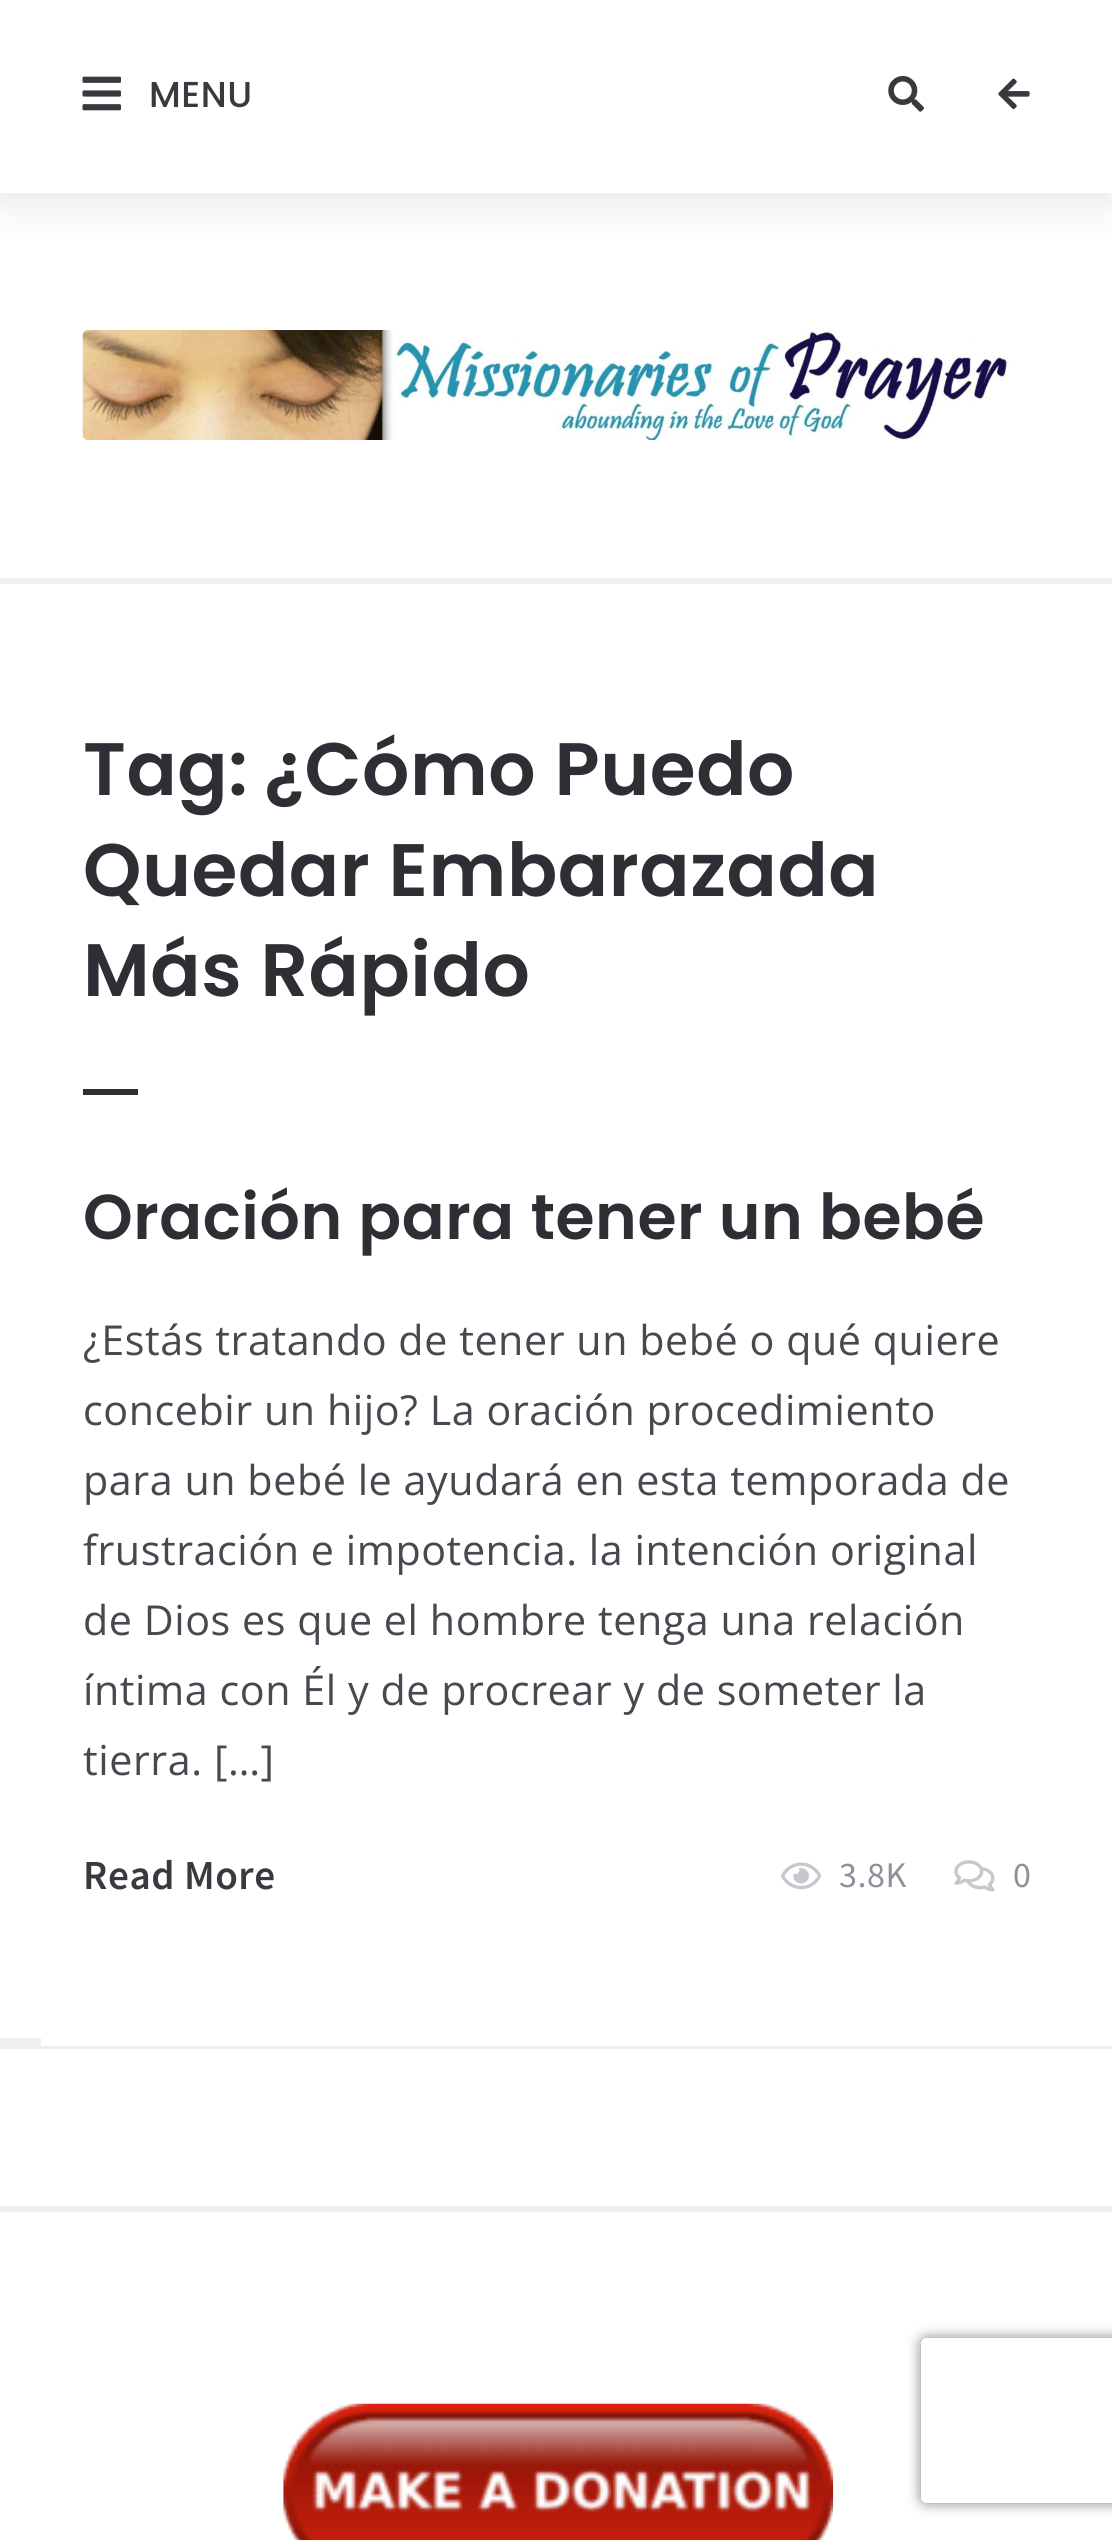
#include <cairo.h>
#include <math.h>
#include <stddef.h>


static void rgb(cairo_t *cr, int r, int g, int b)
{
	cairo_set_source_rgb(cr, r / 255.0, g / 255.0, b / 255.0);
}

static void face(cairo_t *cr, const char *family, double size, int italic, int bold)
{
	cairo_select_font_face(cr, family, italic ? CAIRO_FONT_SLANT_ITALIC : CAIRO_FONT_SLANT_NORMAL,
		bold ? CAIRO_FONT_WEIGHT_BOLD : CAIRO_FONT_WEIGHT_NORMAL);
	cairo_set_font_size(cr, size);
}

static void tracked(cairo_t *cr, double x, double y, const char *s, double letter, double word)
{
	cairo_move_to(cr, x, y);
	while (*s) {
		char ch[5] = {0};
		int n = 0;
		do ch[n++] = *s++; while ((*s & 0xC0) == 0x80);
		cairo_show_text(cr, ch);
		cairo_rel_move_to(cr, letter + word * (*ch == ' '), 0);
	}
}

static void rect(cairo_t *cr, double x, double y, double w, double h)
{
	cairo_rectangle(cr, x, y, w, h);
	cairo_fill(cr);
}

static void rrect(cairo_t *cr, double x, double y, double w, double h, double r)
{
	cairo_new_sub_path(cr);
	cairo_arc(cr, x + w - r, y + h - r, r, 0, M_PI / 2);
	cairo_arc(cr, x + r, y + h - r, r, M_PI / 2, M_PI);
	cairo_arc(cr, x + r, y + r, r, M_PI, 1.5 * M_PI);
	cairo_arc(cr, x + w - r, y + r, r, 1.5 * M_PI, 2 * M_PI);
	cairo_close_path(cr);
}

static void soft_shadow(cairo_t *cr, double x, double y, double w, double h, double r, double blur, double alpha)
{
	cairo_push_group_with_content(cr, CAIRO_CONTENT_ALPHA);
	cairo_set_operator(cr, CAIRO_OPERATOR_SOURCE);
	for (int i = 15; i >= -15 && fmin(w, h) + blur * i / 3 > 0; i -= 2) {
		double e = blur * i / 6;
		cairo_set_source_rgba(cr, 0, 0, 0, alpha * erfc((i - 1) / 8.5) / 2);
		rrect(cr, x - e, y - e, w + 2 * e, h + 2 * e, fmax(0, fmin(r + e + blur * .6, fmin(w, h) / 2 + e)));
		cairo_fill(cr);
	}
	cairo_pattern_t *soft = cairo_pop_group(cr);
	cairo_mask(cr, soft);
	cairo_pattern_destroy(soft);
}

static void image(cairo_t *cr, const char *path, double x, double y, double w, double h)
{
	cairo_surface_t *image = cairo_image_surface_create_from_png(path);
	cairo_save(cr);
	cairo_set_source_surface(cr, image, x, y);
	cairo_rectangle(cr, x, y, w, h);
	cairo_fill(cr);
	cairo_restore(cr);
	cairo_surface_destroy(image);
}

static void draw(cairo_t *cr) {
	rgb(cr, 255, 255, 255);
	cairo_paint(cr);
	rgb(cr, 32, 32, 37);
	soft_shadow(cr, 3, 8, 1108, 187, 0, 25, 0.15);
	rgb(cr, 255, 255, 255);
	rect(cr, 0, 0, 1112, 193);
	image(cr, "image0.png", 82, 76, 39, 35);
	face(cr, "Poppins Medium", 36, 0, 0);
	rgb(cr, 57, 57, 64);
	tracked(cr, 149, 107, "MENU", 0.55, 0);
	image(cr, "image1.png", 888, 76, 36, 36);
	image(cr, "image2.png", 998, 78, 32, 32);
	image(cr, "image3.png", 82, 330, 928, 110);
	rgb(cr, 239, 239, 242);
	rect(cr, 0, 578, 1112, 6);
	face(cr, "Poppins SemiBold", 74.25, 0, 0);
	rgb(cr, 46, 46, 52);
	tracked(cr, 83, 795, "Tag:", 0.55, 0);
	tracked(cr, 264, 795, "¿Cómo Puedo", 0.55, 0);
	tracked(cr, 83, 896, "Quedar Embarazada", 0.55, 0);
	tracked(cr, 83, 996, "Más Rápido", 0.55, 0);
	rect(cr, 83, 1089, 55, 6);
	rgb(cr, 239, 239, 242);
	rect(cr, 41, 2046, 1071, 3);
	face(cr, "Poppins SemiBold", 63.25, 0, 0);
	rgb(cr, 46, 46, 52);
	tracked(cr, 83, 1239, "Oración para tener un bebé", 0.55, 0);
	face(cr, "Open Sans", 41.25, 0, 0);
	rgb(cr, 72, 72, 80);
	tracked(cr, 83, 1355, "¿Estás tratando de tener un bebé o qué quiere", 0.55, 0);
	tracked(cr, 83, 1425, "concebir un hijo? La oración procedimiento", 0.55, 0);
	tracked(cr, 83, 1495, "para un bebé le ayudará en esta temporada de", 0.55, 0);
	tracked(cr, 83, 1565, "frustración e impotencia. la intención original", 0.55, 0);
	tracked(cr, 83, 1635, "de Dios es que el hombre tenga una relación", 0.55, 0);
	tracked(cr, 83, 1705, "íntima con Él y de procrear y de someter la", 0.55, 0);
	tracked(cr, 83, 1775, "tierra. […]", 0.55, 0);
	face(cr, "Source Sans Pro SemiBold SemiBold", 41.25, 0, 0);
	rgb(cr, 57, 57, 64);
	tracked(cr, 83, 1889, "Read More", 0.55, 0);
	image(cr, "image4.png", 781, 1862, 41, 28);
	face(cr, "Source Sans Pro", 36, 0, 0);
	rgb(cr, 143, 143, 156);
	tracked(cr, 839, 1887, "3.8K", 0.55, 0);
	image(cr, "image5.png", 954, 1860, 41, 32);
	tracked(cr, 1013, 1887, "0", 0.55, 0);
	rgb(cr, 238, 239, 241);
	rect(cr, 0, 2038, 41, 11);
	rgb(cr, 239, 239, 242);
	rect(cr, 0, 2206, 1112, 6);
	image(cr, "image6.png", 283, 2403, 551, 137);
	cairo_save(cr);
	cairo_set_fill_rule(cr, CAIRO_FILL_RULE_EVEN_ODD);
	cairo_new_path(cr);
	cairo_move_to(cr, 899, 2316);
	cairo_line_to(cr, 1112, 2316);
	cairo_line_to(cr, 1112, 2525);
	cairo_line_to(cr, 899, 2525);
	cairo_close_path(cr);
	cairo_move_to(cr, 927, 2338);
	cairo_line_to(cr, 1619, 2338);
	cairo_curve_to(cr, 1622.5, 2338, 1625, 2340.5, 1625, 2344);
	cairo_line_to(cr, 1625, 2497);
	cairo_curve_to(cr, 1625, 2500.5, 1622.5, 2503, 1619, 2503);
	cairo_line_to(cr, 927, 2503);
	cairo_curve_to(cr, 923.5, 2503, 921, 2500.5, 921, 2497);
	cairo_line_to(cr, 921, 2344);
	cairo_curve_to(cr, 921, 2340.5, 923.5, 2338, 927, 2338);
	cairo_close_path(cr);
	cairo_clip(cr);
	rgb(cr, 128, 128, 128);
	soft_shadow(cr, 921, 2338, 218, 165, 6, 7, 1);
	cairo_restore(cr);
}

int main(void) {
	cairo_surface_t *surface = cairo_image_surface_create(CAIRO_FORMAT_RGB24, 1112, 2540);
	cairo_t *cr = cairo_create(surface);
	cairo_font_options_t *options = cairo_font_options_create();
	cairo_font_options_set_hint_metrics(options, CAIRO_HINT_METRICS_OFF);
	cairo_font_options_set_hint_style(options, CAIRO_HINT_STYLE_NONE);
	cairo_set_font_options(cr, options);
	cairo_set_miter_limit(cr, 4);
	draw(cr);
	cairo_surface_write_to_png(surface, "render.png");
	cairo_font_options_destroy(options);
	cairo_destroy(cr);
	cairo_surface_destroy(surface);
	return 0;
}
